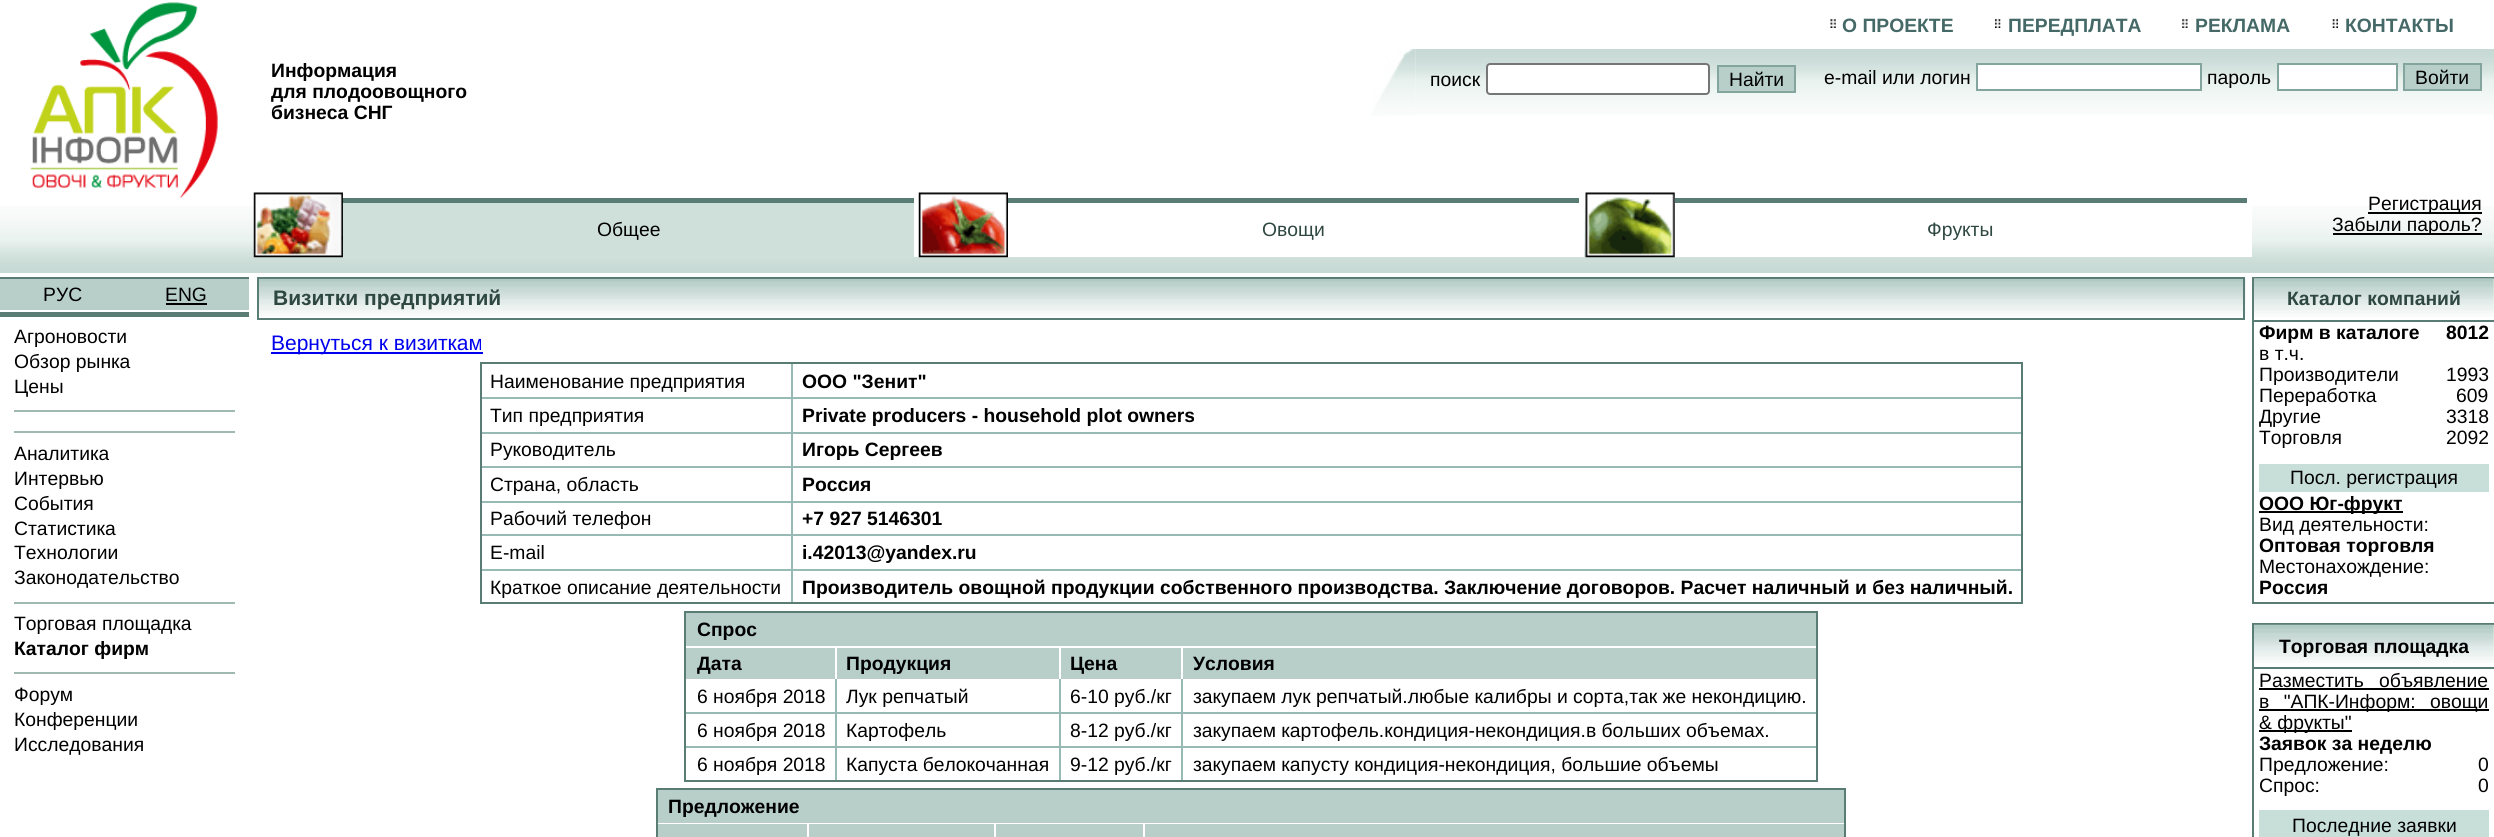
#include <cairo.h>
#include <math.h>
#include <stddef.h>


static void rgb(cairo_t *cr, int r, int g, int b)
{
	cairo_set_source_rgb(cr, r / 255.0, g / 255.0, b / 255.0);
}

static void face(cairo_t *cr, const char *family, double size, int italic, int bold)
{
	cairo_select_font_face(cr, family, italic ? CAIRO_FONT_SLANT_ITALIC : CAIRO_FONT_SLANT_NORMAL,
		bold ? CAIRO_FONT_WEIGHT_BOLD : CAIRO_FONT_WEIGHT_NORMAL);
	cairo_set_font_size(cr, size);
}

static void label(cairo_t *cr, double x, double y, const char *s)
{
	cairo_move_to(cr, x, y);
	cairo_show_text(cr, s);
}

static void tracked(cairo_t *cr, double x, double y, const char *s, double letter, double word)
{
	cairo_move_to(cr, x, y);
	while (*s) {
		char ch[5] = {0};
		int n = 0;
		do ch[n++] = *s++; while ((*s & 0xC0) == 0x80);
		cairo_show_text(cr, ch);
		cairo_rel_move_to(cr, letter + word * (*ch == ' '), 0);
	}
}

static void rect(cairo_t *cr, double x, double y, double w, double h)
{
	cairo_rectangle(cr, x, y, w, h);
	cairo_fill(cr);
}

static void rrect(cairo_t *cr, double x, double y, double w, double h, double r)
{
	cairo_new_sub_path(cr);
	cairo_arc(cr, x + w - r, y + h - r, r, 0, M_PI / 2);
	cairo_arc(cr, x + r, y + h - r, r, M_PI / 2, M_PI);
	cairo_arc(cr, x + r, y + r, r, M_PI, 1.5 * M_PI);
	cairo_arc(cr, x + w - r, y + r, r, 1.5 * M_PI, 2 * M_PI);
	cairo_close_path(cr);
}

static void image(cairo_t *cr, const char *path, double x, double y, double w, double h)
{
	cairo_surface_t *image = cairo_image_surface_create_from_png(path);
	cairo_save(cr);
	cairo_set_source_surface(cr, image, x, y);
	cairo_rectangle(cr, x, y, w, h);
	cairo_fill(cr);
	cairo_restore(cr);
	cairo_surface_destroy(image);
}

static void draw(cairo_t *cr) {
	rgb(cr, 255, 255, 255);
	cairo_paint(cr);
	image(cr, "image0.png", 0, 206, 2494, 67);
	image(cr, "image1.png", 1830, 19, 6, 9);
	face(cr, "Liberation Sans", 19.32, 0, 1);
	rgb(cr, 69, 105, 103);
	label(cr, 1842, 32, "О ПРОЕКТЕ");
	image(cr, "image2.png", 1995, 19, 6, 9);
	label(cr, 2008, 32, "ПЕРЕДПЛАТА");
	image(cr, "image3.png", 2182, 19, 6, 9);
	label(cr, 2195, 32, "РЕКЛАМА");
	image(cr, "image4.png", 2332, 19, 6, 9);
	label(cr, 2345, 32, "КОНТАКТЫ");
	image(cr, "image5.png", 30, 2, 188, 196);
	rgb(cr, 0, 0, 0);
	label(cr, 271, 77, "Информация");
	label(cr, 271, 98, "для плодоовощного");
	label(cr, 271, 119, "бизнеса СНГ");
	image(cr, "image6.png", 1415, 49, 1079, 66);
	image(cr, "image7.png", 1371, 49, 45, 67);
	face(cr, "Liberation Sans", 19.32, 0, 0);
	label(cr, 1430, 86, "поиск");
	rgb(cr, 255, 255, 255);
	rrect(cr, 1487, 64, 222, 30, 3);
	cairo_fill_preserve(cr);
	rgb(cr, 118, 118, 118);
	cairo_stroke(cr);
	rgb(cr, 184, 207, 201);
	cairo_rectangle(cr, 1718, 66, 77, 26);
	cairo_fill_preserve(cr);
	rgb(cr, 132, 165, 157);
	cairo_stroke(cr);
	rgb(cr, 0, 0, 0);
	label(cr, 1729, 86, "Найти");
	label(cr, 1824, 84, "e-mail или логин");
	rgb(cr, 255, 255, 255);
	cairo_rectangle(cr, 1977, 64, 224, 26);
	cairo_fill_preserve(cr);
	rgb(cr, 132, 165, 157);
	cairo_stroke(cr);
	rgb(cr, 0, 0, 0);
	label(cr, 2207, 84, "пароль");
	rgb(cr, 255, 255, 255);
	cairo_rectangle(cr, 2278, 64, 119, 26);
	cairo_fill_preserve(cr);
	rgb(cr, 132, 165, 157);
	cairo_stroke(cr);
	rgb(cr, 184, 207, 201);
	cairo_rectangle(cr, 2404, 64, 77, 26);
	cairo_fill_preserve(cr);
	rgb(cr, 132, 165, 157);
	cairo_stroke(cr);
	rgb(cr, 0, 0, 0);
	label(cr, 2415, 84, "Войти");
	rgb(cr, 207, 224, 218);
	rect(cr, 343, 203, 571, 54);
	rgb(cr, 89, 125, 116);
	rect(cr, 343, 198, 571, 5);
	image(cr, "image8.png", 253, 192, 90, 66);
	rgb(cr, 0, 0, 0);
	label(cr, 597, 236, "Общее");
	rgb(cr, 255, 255, 255);
	rect(cr, 914, 206, 5, 51);
	rect(cr, 1008, 206, 576, 51);
	rgb(cr, 89, 125, 116);
	rect(cr, 1008, 198, 571, 5);
	image(cr, "image9.png", 918, 192, 90, 66);
	rgb(cr, 46, 71, 65);
	label(cr, 1262, 236, "Овощи");
	rgb(cr, 255, 255, 255);
	rect(cr, 1675, 206, 577, 51);
	rgb(cr, 89, 125, 116);
	rect(cr, 1675, 198, 572, 5);
	image(cr, "image10.png", 1585, 192, 90, 66);
	rgb(cr, 46, 71, 65);
	label(cr, 1927, 236, "Фрукты");
	rgb(cr, 0, 0, 0);
	rect(cr, 2368, 212, 114, 2);
	label(cr, 2368, 210, "Регистрация");
	rect(cr, 2333, 233, 149, 2);
	label(cr, 2332, 231, "Забыли пароль?");
	rgb(cr, 184, 207, 201);
	rect(cr, 0, 279, 249, 31);
	rgb(cr, 89, 125, 116);
	rect(cr, 0, 277, 249, 2);
	rgb(cr, 0, 0, 0);
	label(cr, 43, 301, "РУС");
	label(cr, 165, 301, "ENG");
	rect(cr, 166, 303, 41, 2);
	rgb(cr, 89, 125, 116);
	rect(cr, 0, 312, 249, 5);
	rgb(cr, 0, 0, 0);
	label(cr, 14, 343, "Агроновости");
	label(cr, 14, 368, "Обзор рынка");
	label(cr, 14, 393, "Цены");
	rgb(cr, 162, 184, 178);
	rect(cr, 14, 410, 221, 2);
	rect(cr, 14, 431, 221, 2);
	rgb(cr, 0, 0, 0);
	label(cr, 14, 460, "Аналитика");
	label(cr, 14, 485, "Интервью");
	label(cr, 14, 510, "События");
	label(cr, 14, 535, "Статистика");
	label(cr, 14, 559, "Технологии");
	label(cr, 14, 584, "Законодательство");
	rgb(cr, 162, 184, 178);
	rect(cr, 14, 602, 221, 2);
	rgb(cr, 0, 0, 0);
	label(cr, 14, 630, "Торговая площадка");
	face(cr, "Liberation Sans", 19.32, 0, 1);
	label(cr, 14, 655, "Каталог фирм");
	rgb(cr, 162, 184, 178);
	rect(cr, 14, 672, 221, 2);
	face(cr, "Liberation Sans", 19.32, 0, 0);
	rgb(cr, 0, 0, 0);
	label(cr, 14, 701, "Форум");
	label(cr, 14, 726, "Конференции");
	label(cr, 14, 751, "Исследования");
	image(cr, "image11.png", 259, 278, 1987, 39);
	cairo_rectangle(cr, 258, 278, 1986, 41);
	rgb(cr, 89, 125, 116);
	cairo_stroke(cr);
	face(cr, "Liberation Sans", 21, 0, 1);
	rgb(cr, 46, 71, 65);
	label(cr, 273, 305, "Визитки предприятий");
	rgb(cr, 0, 0, 238);
	rect(cr, 271, 352, 212, 2);
	face(cr, "Liberation Sans", 21, 0, 0);
	label(cr, 271, 350, "Вернуться к визиткам");
	rgb(cr, 151, 186, 180);
	rect(cr, 791, 364, 2, 103);
	rect(cr, 481, 397, 1540, 2);
	rect(cr, 481, 432, 1540, 2);
	rect(cr, 481, 466, 1540, 2);
	rect(cr, 791, 467, 2, 35);
	rect(cr, 481, 501, 1540, 2);
	rect(cr, 791, 502, 2, 100);
	rect(cr, 481, 534, 1540, 2);
	rect(cr, 481, 569, 1540, 2);
	cairo_rectangle(cr, 481, 363, 1541, 240);
	rgb(cr, 89, 125, 116);
	cairo_stroke(cr);
	face(cr, "Liberation Sans", 19.32, 0, 0);
	rgb(cr, 0, 0, 0);
	label(cr, 490, 388, "Наименование предприятия");
	face(cr, "Liberation Sans", 19.32, 0, 1);
	label(cr, 802, 388, "ООО \"Зенит\"");
	face(cr, "Liberation Sans", 19.32, 0, 0);
	label(cr, 490, 422, "Тип предприятия");
	face(cr, "Liberation Sans", 19.32, 0, 1);
	label(cr, 802, 422, "Private producers - household plot owners");
	face(cr, "Liberation Sans", 19.32, 0, 0);
	label(cr, 490, 456, "Руководитель");
	face(cr, "Liberation Sans", 19.32, 0, 1);
	label(cr, 802, 456, "Игорь Сергеев");
	face(cr, "Liberation Sans", 19.32, 0, 0);
	label(cr, 490, 491, "Страна, область");
	face(cr, "Liberation Sans", 19.32, 0, 1);
	label(cr, 802, 491, "Россия");
	face(cr, "Liberation Sans", 19.32, 0, 0);
	label(cr, 490, 525, "Рабочий телефон");
	face(cr, "Liberation Sans", 19.32, 0, 1);
	label(cr, 802, 525, "+7 927 5146301");
	face(cr, "Liberation Sans", 19.32, 0, 0);
	label(cr, 490, 559, "E-mail");
	face(cr, "Liberation Sans", 19.32, 0, 1);
	label(cr, 802, 559, "i.42013@yandex.ru");
	face(cr, "Liberation Sans", 19.32, 0, 0);
	label(cr, 490, 594, "Краткое описание деятельности");
	face(cr, "Liberation Sans", 19.32, 0, 1);
	label(cr, 802, 594, "Производитель овощной продукции собственного производства. Заключение договоров. Расчет наличный и без наличный.");
	rgb(cr, 184, 207, 201);
	rect(cr, 686, 613, 1130, 33);
	rect(cr, 686, 648, 149, 31);
	rect(cr, 837, 648, 222, 31);
	rect(cr, 1061, 648, 120, 31);
	rect(cr, 1183, 648, 633, 31);
	rgb(cr, 151, 186, 180);
	rect(cr, 835, 679, 2, 68);
	rect(cr, 686, 712, 151, 2);
	rect(cr, 1059, 679, 2, 68);
	rect(cr, 837, 712, 224, 2);
	rect(cr, 1181, 679, 2, 68);
	rect(cr, 1061, 712, 756, 2);
	rect(cr, 686, 746, 1131, 2);
	rect(cr, 835, 747, 2, 34);
	rect(cr, 1059, 747, 2, 34);
	rect(cr, 1181, 747, 2, 34);
	cairo_rectangle(cr, 685, 612, 1132, 169);
	rgb(cr, 89, 125, 116);
	cairo_stroke(cr);
	rgb(cr, 0, 0, 0);
	label(cr, 697, 636, "Спрос");
	label(cr, 697, 670, "Дата");
	label(cr, 846, 670, "Продукция");
	label(cr, 1070, 670, "Цена");
	label(cr, 1193, 670, "Условия");
	face(cr, "Liberation Sans", 19.32, 0, 0);
	label(cr, 697, 703, "6 ноября 2018");
	label(cr, 846, 703, "Лук репчатый");
	label(cr, 1070, 703, "6-10 руб./кг");
	label(cr, 1193, 703, "закупаем лук репчатый.любые калибры и сорта,так же некондицию.");
	label(cr, 697, 737, "6 ноября 2018");
	label(cr, 846, 737, "Картофель");
	label(cr, 1070, 737, "8-12 руб./кг");
	label(cr, 1193, 737, "закупаем картофель.кондиция-некондиция.в больших объемах.");
	label(cr, 697, 771, "6 ноября 2018");
	label(cr, 846, 771, "Капуста белокочанная");
	label(cr, 1070, 771, "9-12 руб./кг");
	label(cr, 1193, 771, "закупаем капусту кондиция-некондиция, большие объемы");
	rgb(cr, 184, 207, 201);
	rect(cr, 658, 790, 1186, 33);
	rect(cr, 658, 824, 149, 13);
	rect(cr, 809, 824, 185, 13);
	rect(cr, 996, 824, 147, 13);
	rect(cr, 1145, 824, 699, 13);
	cairo_rectangle(cr, 657, 789, 1188, 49);
	rgb(cr, 89, 125, 116);
	cairo_stroke(cr);
	face(cr, "Liberation Sans", 19.32, 0, 1);
	rgb(cr, 0, 0, 0);
	label(cr, 668, 813, "Предложение");
	cairo_rectangle(cr, 2253, 278, 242, 325);
	rgb(cr, 89, 125, 116);
	cairo_stroke(cr);
	image(cr, "image12.png", 2254, 278, 240, 39);
	rect(cr, 2254, 320, 240, 2);
	rgb(cr, 46, 71, 65);
	label(cr, 2287, 305, "Каталог компаний");
	rgb(cr, 0, 0, 0);
	label(cr, 2259, 339, "Фирм в каталоге");
	label(cr, 2446, 339, "8012");
	face(cr, "Liberation Sans", 19.32, 0, 0);
	label(cr, 2259, 360, "в т.ч.");
	label(cr, 2259, 381, "Производители");
	label(cr, 2446, 381, "1993");
	label(cr, 2259, 402, "Переработка");
	label(cr, 2456, 402, "609");
	label(cr, 2259, 423, "Другие");
	label(cr, 2446, 423, "3318");
	label(cr, 2259, 444, "Торговля");
	label(cr, 2446, 444, "2092");
	rgb(cr, 200, 223, 217);
	rect(cr, 2259, 464, 230, 28);
	rgb(cr, 0, 0, 0);
	label(cr, 2290, 484, "Посл. регистрация");
	rect(cr, 2259, 511, 144, 2);
	face(cr, "Liberation Sans", 19.32, 0, 1);
	label(cr, 2259, 510, "ООО Юг-фрукт");
	face(cr, "Liberation Sans", 19.32, 0, 0);
	label(cr, 2259, 531, "Вид деятельности:");
	face(cr, "Liberation Sans", 19.32, 0, 1);
	label(cr, 2259, 552, "Оптовая торговля");
	face(cr, "Liberation Sans", 19.32, 0, 0);
	label(cr, 2259, 573, "Местонахождение:");
	face(cr, "Liberation Sans", 19.32, 0, 1);
	label(cr, 2259, 594, "Россия");
	cairo_rectangle(cr, 2253, 624, 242, 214);
	rgb(cr, 89, 125, 116);
	cairo_stroke(cr);
	image(cr, "image13.png", 2254, 624, 240, 39);
	rect(cr, 2254, 667, 240, 2);
	rgb(cr, 0, 0, 0);
	label(cr, 2279, 653, "Торговая площадка");
	face(cr, "Liberation Sans", 19.32, 0, 0);
	tracked(cr, 2259, 687, "Разместить объявление", 0, 10);
	rect(cr, 2259, 688, 230, 2);
	rect(cr, 2259, 709, 230, 2);
	tracked(cr, 2259, 708, "в \"АПК-Информ: овощи", 0, 9);
	rect(cr, 2259, 730, 93, 2);
	label(cr, 2259, 729, "& фрукты\"");
	face(cr, "Liberation Sans", 19.32, 0, 1);
	label(cr, 2259, 750, "Заявок за неделю");
	face(cr, "Liberation Sans", 19.32, 0, 0);
	label(cr, 2259, 771, "Предложение:");
	label(cr, 2478, 771, "0");
	label(cr, 2259, 792, "Спрос:");
	label(cr, 2478, 792, "0");
	rgb(cr, 200, 223, 217);
	rect(cr, 2259, 810, 230, 27);
	rgb(cr, 0, 0, 0);
	label(cr, 2292, 832, "Последние заявки");
}

int main(void) {
	cairo_surface_t *surface = cairo_image_surface_create(CAIRO_FORMAT_RGB24, 2494, 837);
	cairo_t *cr = cairo_create(surface);
	cairo_font_options_t *options = cairo_font_options_create();
	cairo_font_options_set_hint_metrics(options, CAIRO_HINT_METRICS_OFF);
	cairo_font_options_set_hint_style(options, CAIRO_HINT_STYLE_NONE);
	cairo_set_font_options(cr, options);
	cairo_set_miter_limit(cr, 4);
	draw(cr);
	cairo_surface_write_to_png(surface, "render.png");
	cairo_font_options_destroy(options);
	cairo_destroy(cr);
	cairo_surface_destroy(surface);
	return 0;
}
